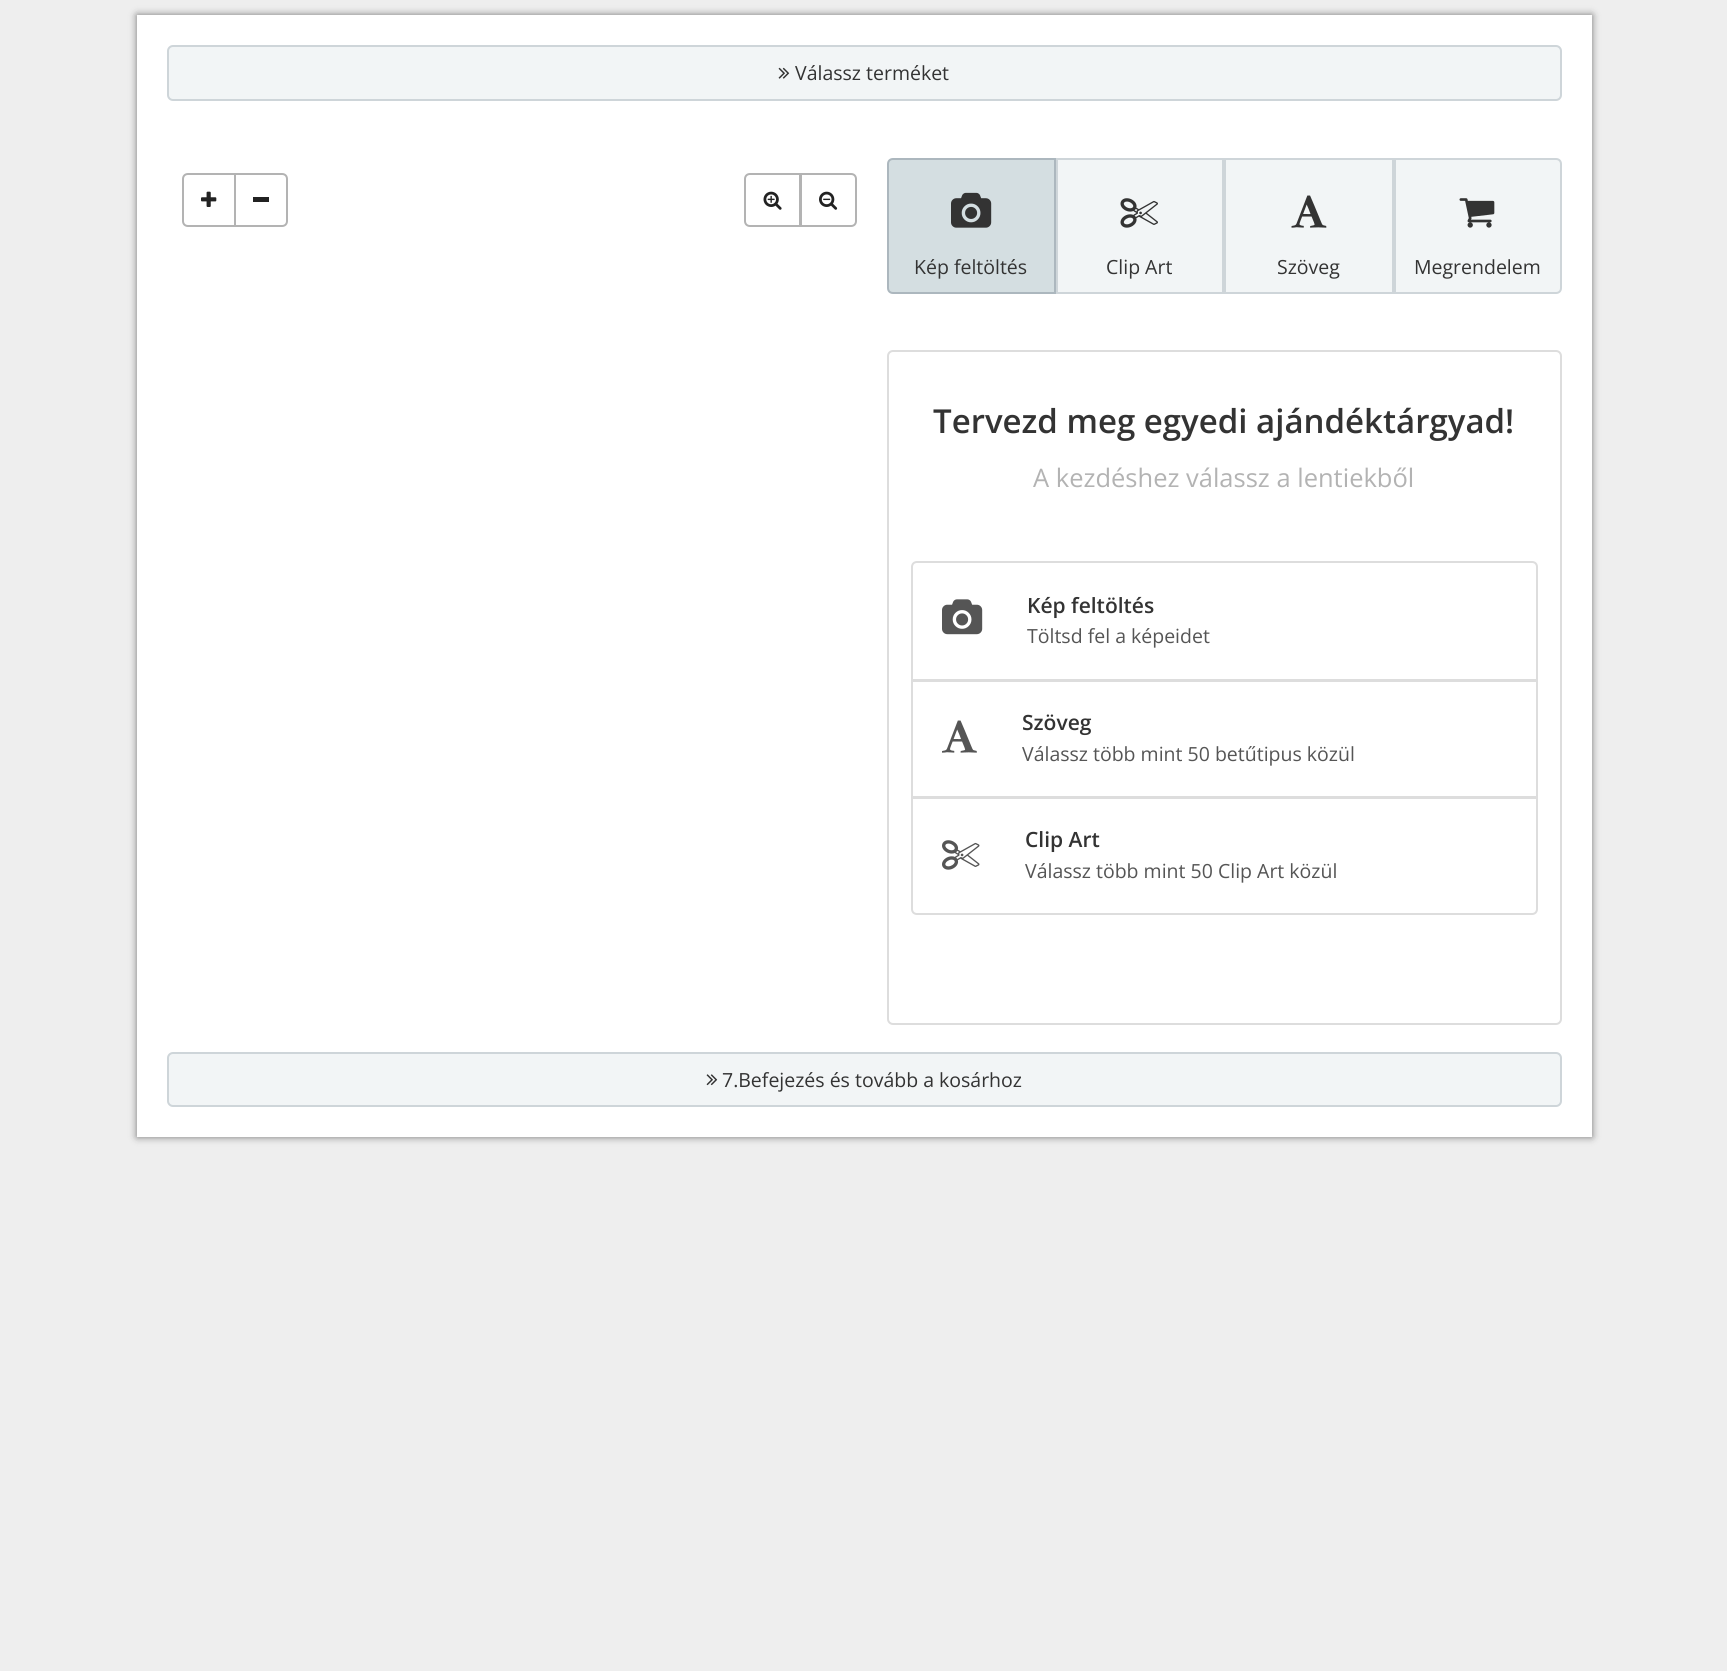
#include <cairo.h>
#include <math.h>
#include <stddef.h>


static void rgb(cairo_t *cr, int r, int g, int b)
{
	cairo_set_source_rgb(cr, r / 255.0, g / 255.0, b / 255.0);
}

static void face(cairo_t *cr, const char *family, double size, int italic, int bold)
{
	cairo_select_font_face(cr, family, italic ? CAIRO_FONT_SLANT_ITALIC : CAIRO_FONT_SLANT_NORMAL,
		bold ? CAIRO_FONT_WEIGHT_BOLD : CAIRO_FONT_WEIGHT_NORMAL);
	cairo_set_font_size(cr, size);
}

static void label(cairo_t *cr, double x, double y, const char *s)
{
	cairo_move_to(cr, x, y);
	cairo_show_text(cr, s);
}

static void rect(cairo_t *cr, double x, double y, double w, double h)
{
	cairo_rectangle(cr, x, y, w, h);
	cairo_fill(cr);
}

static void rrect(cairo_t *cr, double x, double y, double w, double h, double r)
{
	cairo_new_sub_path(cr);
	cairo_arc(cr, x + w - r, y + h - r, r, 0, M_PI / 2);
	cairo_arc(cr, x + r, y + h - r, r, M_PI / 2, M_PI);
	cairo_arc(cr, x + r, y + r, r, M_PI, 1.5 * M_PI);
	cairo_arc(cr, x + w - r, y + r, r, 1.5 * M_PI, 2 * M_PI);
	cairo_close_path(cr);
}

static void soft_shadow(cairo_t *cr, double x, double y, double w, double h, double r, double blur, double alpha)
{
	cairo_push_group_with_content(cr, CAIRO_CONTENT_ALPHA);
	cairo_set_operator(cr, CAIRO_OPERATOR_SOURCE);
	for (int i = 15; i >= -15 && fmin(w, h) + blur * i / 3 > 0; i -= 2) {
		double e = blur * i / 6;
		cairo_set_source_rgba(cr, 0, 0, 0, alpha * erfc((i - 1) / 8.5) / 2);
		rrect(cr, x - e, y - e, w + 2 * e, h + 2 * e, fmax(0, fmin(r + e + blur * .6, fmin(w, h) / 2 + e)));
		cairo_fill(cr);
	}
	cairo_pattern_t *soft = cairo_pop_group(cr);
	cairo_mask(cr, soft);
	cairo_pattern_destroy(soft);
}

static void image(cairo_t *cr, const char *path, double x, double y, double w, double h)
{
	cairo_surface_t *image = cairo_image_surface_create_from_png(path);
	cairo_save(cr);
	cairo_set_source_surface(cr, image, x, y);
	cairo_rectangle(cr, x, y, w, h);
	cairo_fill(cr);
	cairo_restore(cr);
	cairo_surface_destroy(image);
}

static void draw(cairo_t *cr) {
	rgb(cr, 238, 238, 238);
	cairo_paint(cr);
	rgb(cr, 0, 0, 0);
	soft_shadow(cr, 137, 15, 1455, 1122, 0, 4, 0.5);
	rgb(cr, 255, 255, 255);
	rect(cr, 137, 15, 1455, 1122);
	rgb(cr, 242, 245, 246);
	rrect(cr, 168, 46, 1393, 54, 5);
	cairo_fill_preserve(cr);
	rgb(cr, 206, 213, 217);
	cairo_stroke(cr);
	image(cr, "image0.png", 778, 67, 12, 12);
	face(cr, "Open Sans", 19.5, 0, 0);
	rgb(cr, 51, 51, 51);
	label(cr, 795, 80, "Válassz terméket");
	cairo_new_path(cr);
	cairo_move_to(cr, 188, 174);
	cairo_line_to(cr, 235, 174);
	cairo_line_to(cr, 235, 226);
	cairo_line_to(cr, 188, 226);
	cairo_curve_to(cr, 185, 226, 183, 224, 183, 221);
	cairo_line_to(cr, 183, 179);
	cairo_curve_to(cr, 183, 176, 185, 174, 188, 174);
	cairo_close_path(cr);
	rgb(cr, 179, 179, 179);
	cairo_stroke(cr);
	image(cr, "image1.png", 201, 191, 16, 16);
	rgb(cr, 255, 255, 255);
	cairo_new_path(cr);
	cairo_move_to(cr, 235, 174);
	cairo_line_to(cr, 282, 174);
	cairo_curve_to(cr, 285, 174, 287, 176, 287, 179);
	cairo_line_to(cr, 287, 221);
	cairo_curve_to(cr, 287, 224, 285, 226, 282, 226);
	cairo_line_to(cr, 235, 226);
	cairo_close_path(cr);
	cairo_fill_preserve(cr);
	rgb(cr, 179, 179, 179);
	cairo_stroke(cr);
	rgb(cr, 34, 34, 34);
	rect(cr, 253, 197, 16, 5);
	cairo_new_path(cr);
	cairo_move_to(cr, 750, 174);
	cairo_line_to(cr, 800, 174);
	cairo_line_to(cr, 800, 226);
	cairo_line_to(cr, 750, 226);
	cairo_curve_to(cr, 747, 226, 745, 224, 745, 221);
	cairo_line_to(cr, 745, 179);
	cairo_curve_to(cr, 745, 176, 747, 174, 750, 174);
	cairo_close_path(cr);
	rgb(cr, 179, 179, 179);
	cairo_stroke(cr);
	image(cr, "image2.png", 763, 191, 19, 19);
	rgb(cr, 255, 255, 255);
	cairo_new_path(cr);
	cairo_move_to(cr, 801, 174);
	cairo_line_to(cr, 851, 174);
	cairo_curve_to(cr, 854, 174, 856, 176, 856, 179);
	cairo_line_to(cr, 856, 221);
	cairo_curve_to(cr, 856, 224, 854, 226, 851, 226);
	cairo_line_to(cr, 801, 226);
	cairo_close_path(cr);
	cairo_fill_preserve(cr);
	rgb(cr, 179, 179, 179);
	cairo_stroke(cr);
	image(cr, "image3.png", 819, 191, 19, 19);
	rgb(cr, 212, 222, 225);
	cairo_new_path(cr);
	cairo_move_to(cr, 893, 159);
	cairo_line_to(cr, 1055, 159);
	cairo_line_to(cr, 1055, 293);
	cairo_line_to(cr, 893, 293);
	cairo_curve_to(cr, 890, 293, 888, 291, 888, 288);
	cairo_line_to(cr, 888, 164);
	cairo_curve_to(cr, 888, 161, 890, 159, 893, 159);
	cairo_close_path(cr);
	cairo_fill_preserve(cr);
	rgb(cr, 172, 183, 190);
	cairo_stroke(cr);
	image(cr, "image4.png", 951, 192, 41, 36);
	rgb(cr, 51, 51, 51);
	label(cr, 914, 274, "Kép feltöltés");
	rgb(cr, 242, 245, 246);
	cairo_rectangle(cr, 1057, 159, 166, 134);
	cairo_fill_preserve(cr);
	rgb(cr, 206, 213, 217);
	cairo_stroke(cr);
	image(cr, "image5.png", 1120, 198, 38, 30);
	rgb(cr, 51, 51, 51);
	label(cr, 1106, 274, "Clip Art");
	rgb(cr, 242, 245, 246);
	cairo_rectangle(cr, 1225, 159, 168, 134);
	cairo_fill_preserve(cr);
	rgb(cr, 206, 213, 217);
	cairo_stroke(cr);
	image(cr, "image6.png", 1291, 195, 36, 33);
	rgb(cr, 51, 51, 51);
	label(cr, 1277, 274, "Szöveg");
	rgb(cr, 242, 245, 246);
	cairo_new_path(cr);
	cairo_move_to(cr, 1395, 159);
	cairo_line_to(cr, 1556, 159);
	cairo_curve_to(cr, 1559, 159, 1561, 161, 1561, 164);
	cairo_line_to(cr, 1561, 288);
	cairo_curve_to(cr, 1561, 291, 1559, 293, 1556, 293);
	cairo_line_to(cr, 1395, 293);
	cairo_close_path(cr);
	cairo_fill_preserve(cr);
	rgb(cr, 206, 213, 217);
	cairo_stroke(cr);
	image(cr, "image7.png", 1459, 198, 36, 30);
	rgb(cr, 51, 51, 51);
	label(cr, 1414, 274, "Megrendelem");
	rrect(cr, 888, 351, 673, 673, 5);
	rgb(cr, 221, 221, 221);
	cairo_stroke(cr);
	face(cr, "Open Sans SemiBold", 33, 0, 0);
	rgb(cr, 51, 51, 51);
	label(cr, 933, 433, "Tervezd meg egyedi ajándéktárgyad!");
	face(cr, "Open Sans", 25.5, 0, 0);
	rgb(cr, 179, 179, 179);
	label(cr, 1033, 487, "A kezdéshez válassz a lentiekből");
	cairo_new_path(cr);
	cairo_move_to(cr, 917, 562);
	cairo_line_to(cr, 1532, 562);
	cairo_curve_to(cr, 1535, 562, 1537, 564, 1537, 567);
	cairo_line_to(cr, 1537, 680);
	cairo_line_to(cr, 912, 680);
	cairo_line_to(cr, 912, 567);
	cairo_curve_to(cr, 912, 564, 914, 562, 917, 562);
	cairo_close_path(cr);
	rgb(cr, 221, 221, 221);
	cairo_stroke(cr);
	image(cr, "image8.png", 942, 599, 41, 36);
	face(cr, "Open Sans SemiBold", 21, 0, 0);
	rgb(cr, 51, 51, 51);
	label(cr, 1027, 613, "Kép feltöltés");
	face(cr, "Open Sans", 19.5, 0, 0);
	rgb(cr, 85, 85, 85);
	label(cr, 1027, 643, "Töltsd fel a képeidet");
	cairo_rectangle(cr, 912, 681, 625, 116);
	rgb(cr, 221, 221, 221);
	cairo_stroke(cr);
	image(cr, "image9.png", 942, 720, 35, 33);
	face(cr, "Open Sans SemiBold", 21, 0, 0);
	rgb(cr, 51, 51, 51);
	label(cr, 1022, 730, "Szöveg");
	face(cr, "Open Sans", 19.5, 0, 0);
	rgb(cr, 85, 85, 85);
	label(cr, 1022, 761, "Válassz több mint 50 betűtipus közül");
	rgb(cr, 255, 255, 255);
	cairo_new_path(cr);
	cairo_move_to(cr, 912, 798);
	cairo_line_to(cr, 1537, 798);
	cairo_line_to(cr, 1537, 909);
	cairo_curve_to(cr, 1537, 912, 1535, 914, 1532, 914);
	cairo_line_to(cr, 917, 914);
	cairo_curve_to(cr, 914, 914, 912, 912, 912, 909);
	cairo_close_path(cr);
	cairo_fill_preserve(cr);
	rgb(cr, 221, 221, 221);
	cairo_stroke(cr);
	image(cr, "image10.png", 942, 840, 38, 30);
	face(cr, "Open Sans SemiBold", 21, 0, 0);
	rgb(cr, 51, 51, 51);
	label(cr, 1025, 847, "Clip Art");
	face(cr, "Open Sans", 19.5, 0, 0);
	rgb(cr, 85, 85, 85);
	label(cr, 1025, 878, "Válassz több mint 50 Clip Art közül");
	rgb(cr, 242, 245, 246);
	rrect(cr, 168, 1053, 1393, 53, 5);
	cairo_fill_preserve(cr);
	rgb(cr, 206, 213, 217);
	cairo_stroke(cr);
	image(cr, "image11.png", 706, 1074, 12, 12);
	rgb(cr, 51, 51, 51);
	label(cr, 722, 1087, "7.Befejezés és tovább a kosárhoz");
}

int main(void) {
	cairo_surface_t *surface = cairo_image_surface_create(CAIRO_FORMAT_RGB24, 1727, 1671);
	cairo_t *cr = cairo_create(surface);
	cairo_font_options_t *options = cairo_font_options_create();
	cairo_font_options_set_hint_metrics(options, CAIRO_HINT_METRICS_OFF);
	cairo_font_options_set_hint_style(options, CAIRO_HINT_STYLE_NONE);
	cairo_set_font_options(cr, options);
	cairo_set_miter_limit(cr, 4);
	draw(cr);
	cairo_surface_write_to_png(surface, "render.png");
	cairo_font_options_destroy(options);
	cairo_destroy(cr);
	cairo_surface_destroy(surface);
	return 0;
}
